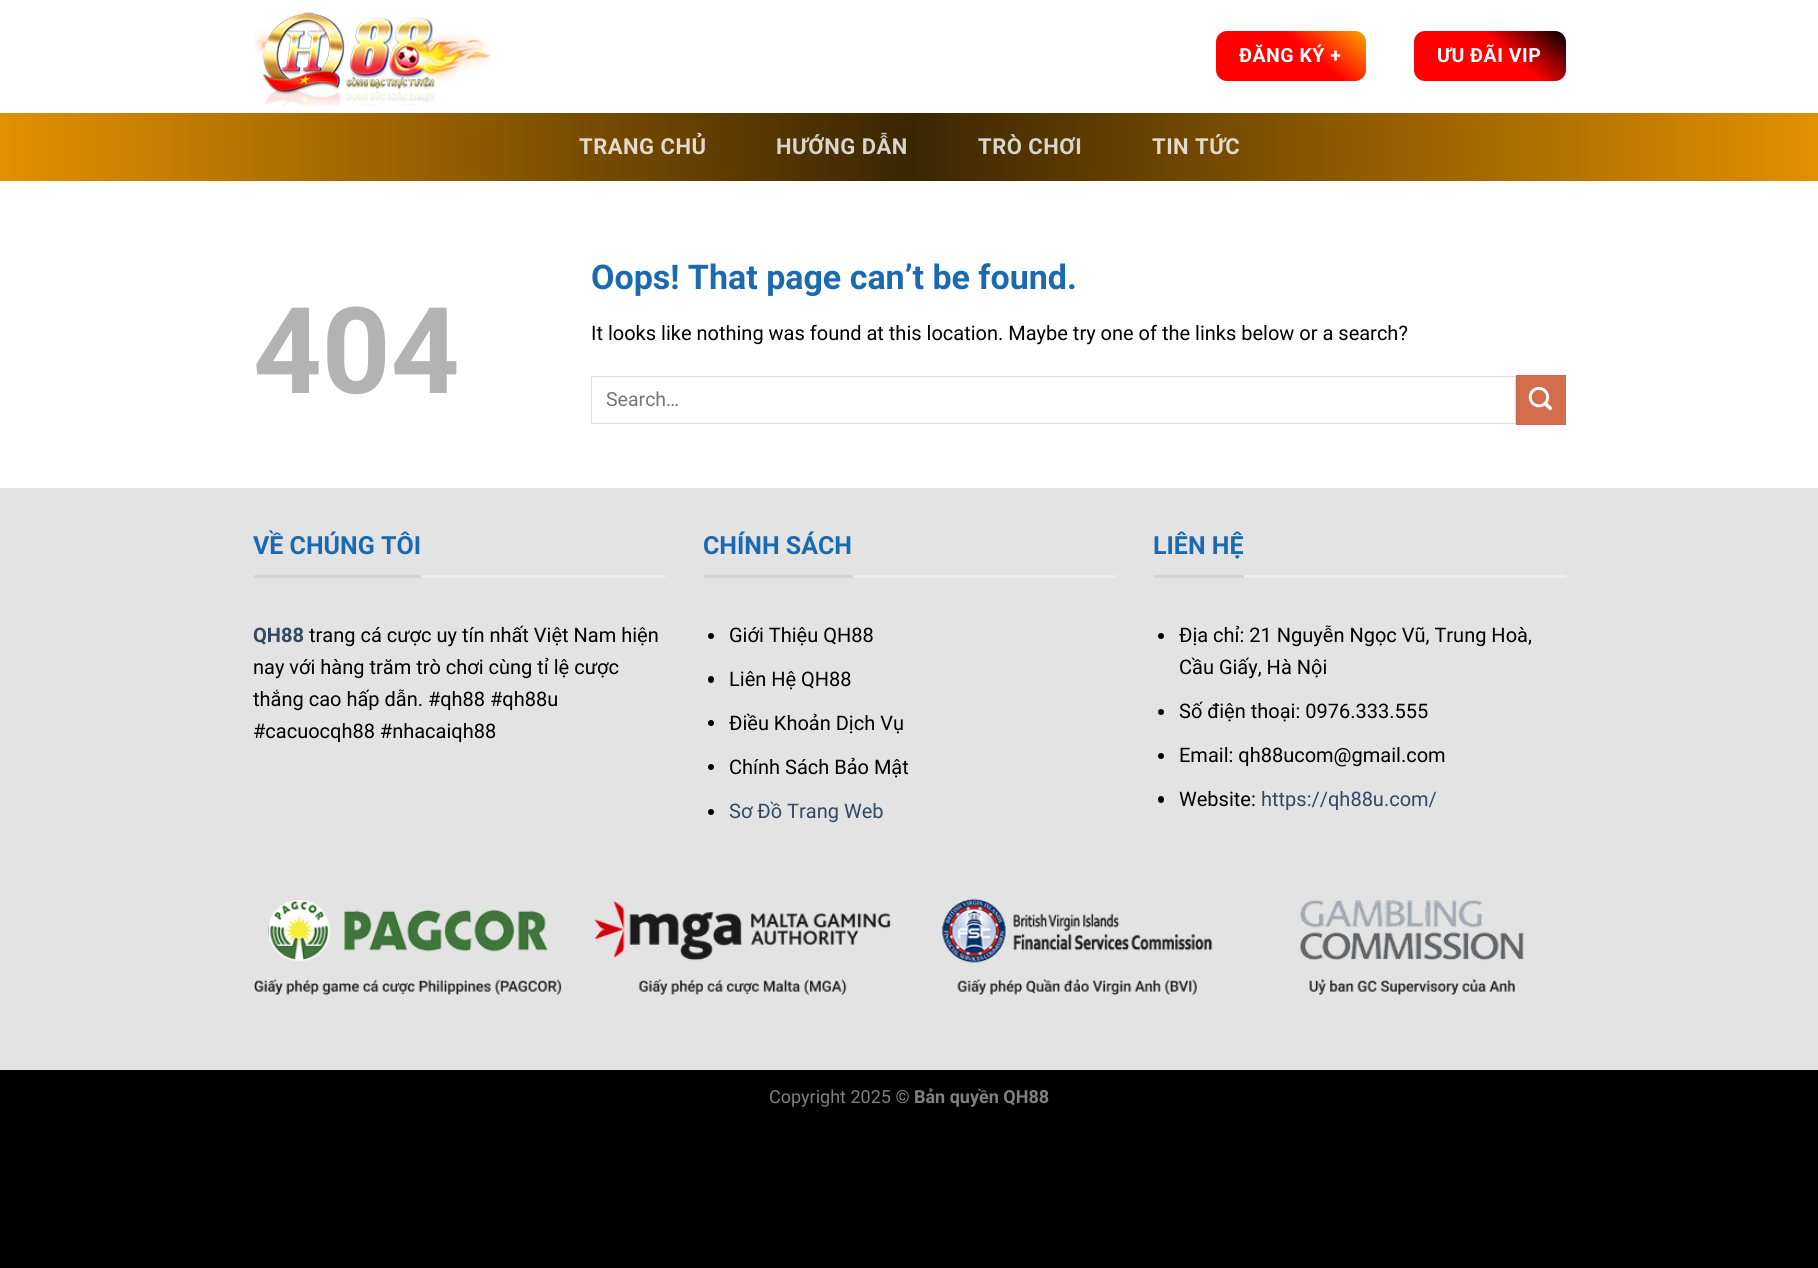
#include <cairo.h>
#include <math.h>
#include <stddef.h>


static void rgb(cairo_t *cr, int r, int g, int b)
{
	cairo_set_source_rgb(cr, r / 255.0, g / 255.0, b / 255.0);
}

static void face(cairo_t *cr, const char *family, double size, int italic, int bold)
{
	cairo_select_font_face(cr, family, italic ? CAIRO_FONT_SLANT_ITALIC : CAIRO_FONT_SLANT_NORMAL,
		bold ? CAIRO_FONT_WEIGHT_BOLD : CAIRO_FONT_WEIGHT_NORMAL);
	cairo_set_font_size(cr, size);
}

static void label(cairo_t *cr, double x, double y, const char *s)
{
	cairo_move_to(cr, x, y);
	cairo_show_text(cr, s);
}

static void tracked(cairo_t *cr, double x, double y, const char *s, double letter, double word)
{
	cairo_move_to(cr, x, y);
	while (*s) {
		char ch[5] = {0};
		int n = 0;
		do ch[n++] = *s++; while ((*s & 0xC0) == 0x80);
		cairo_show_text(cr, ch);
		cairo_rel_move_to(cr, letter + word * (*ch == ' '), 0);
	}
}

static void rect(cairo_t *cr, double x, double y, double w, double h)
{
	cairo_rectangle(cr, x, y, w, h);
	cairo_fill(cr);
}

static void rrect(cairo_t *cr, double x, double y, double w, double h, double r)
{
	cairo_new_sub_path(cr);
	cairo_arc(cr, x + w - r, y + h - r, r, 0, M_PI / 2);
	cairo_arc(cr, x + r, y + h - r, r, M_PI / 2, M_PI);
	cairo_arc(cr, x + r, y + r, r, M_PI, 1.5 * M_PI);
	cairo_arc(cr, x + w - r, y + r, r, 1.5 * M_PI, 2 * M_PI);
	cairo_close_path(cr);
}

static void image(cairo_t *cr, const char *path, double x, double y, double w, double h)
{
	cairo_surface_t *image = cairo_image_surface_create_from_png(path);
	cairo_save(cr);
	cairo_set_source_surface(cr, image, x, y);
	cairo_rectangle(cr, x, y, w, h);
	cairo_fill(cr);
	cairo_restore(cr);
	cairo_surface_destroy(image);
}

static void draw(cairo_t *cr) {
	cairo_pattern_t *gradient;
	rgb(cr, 0, 0, 0);
	cairo_paint(cr);
	rgb(cr, 255, 255, 255);
	rect(cr, 0, 0, 1818, 488);
	image(cr, "image0.png", 254, 12, 237, 94);
	gradient = cairo_pattern_create_linear(1248, 108, 1335, 4.6);
	cairo_pattern_add_color_stop_rgba(gradient, 0.6, 1, 0, 0, 1);
	cairo_pattern_add_color_stop_rgba(gradient, 1, 1, 0.647, 0, 1);
	cairo_set_source(cr, gradient);
	cairo_pattern_destroy(gradient);
	rrect(cr, 1216, 31, 150, 50, 11);
	cairo_fill(cr);
	face(cr, "Roboto", 19.5, 0, 1);
	rgb(cr, 255, 255, 255);
	tracked(cr, 1239, 62, "ĐĂNG KÝ +", 0.5, 0);
	gradient = cairo_pattern_create_linear(1446, 108, 1534, 4);
	cairo_pattern_add_color_stop_rgba(gradient, 0.6, 1, 0, 0, 1);
	cairo_pattern_add_color_stop_rgba(gradient, 1, 0, 0, 0, 1);
	cairo_set_source(cr, gradient);
	cairo_pattern_destroy(gradient);
	rrect(cr, 1414, 31, 152, 50, 11);
	cairo_fill(cr);
	rgb(cr, 255, 255, 255);
	tracked(cr, 1437, 62, "ƯU ĐÃI VIP", 0.5, 0);
	gradient = cairo_pattern_create_linear(0, 147, 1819, 147);
	cairo_pattern_add_color_stop_rgba(gradient, 0, 0.89, 0.565, 0, 1);
	cairo_pattern_add_color_stop_rgba(gradient, 0.25, 0.569, 0.361, 0, 1);
	cairo_pattern_add_color_stop_rgba(gradient, 0.5, 0.231, 0.149, 0.008, 1);
	cairo_pattern_add_color_stop_rgba(gradient, 0.75, 0.569, 0.361, 0, 1);
	cairo_pattern_add_color_stop_rgba(gradient, 1, 0.89, 0.565, 0, 1);
	cairo_set_source(cr, gradient);
	cairo_pattern_destroy(gradient);
	rect(cr, 0, 113, 1818, 68);
	face(cr, "Roboto", 22, 0, 1);
	rgb(cr, 226, 218, 204);
	tracked(cr, 579, 154, "TRANG CHỦ", 0.5, 0);
	rgb(cr, 218, 213, 204);
	tracked(cr, 776, 154, "HƯỚNG DẪN", 0.5, 0);
	tracked(cr, 978, 154, "TRÒ CHƠI", 0.5, 0);
	rgb(cr, 226, 218, 204);
	tracked(cr, 1152, 154, "TIN TỨC", 0.5, 0);
	face(cr, "Roboto", 120, 0, 1);
	rgb(cr, 179, 179, 179);
	label(cr, 253, 393, "404");
	face(cr, "Roboto", 34, 0, 1);
	rgb(cr, 27, 106, 176);
	label(cr, 591, 289, "Oops! That page can’t be found.");
	face(cr, "Roboto", 20, 0, 0);
	rgb(cr, 0, 0, 0);
	label(cr, 591, 340, "It looks like nothing was found at this location. Maybe try one of the links below or a search?");
	cairo_rectangle(cr, 591.5, 376.5, 924, 47);
	rgb(cr, 221, 221, 221);
	cairo_set_line_width(cr, 1);
	cairo_stroke(cr);
	face(cr, "Roboto", 19.5, 0, 0);
	rgb(cr, 117, 117, 117);
	label(cr, 606, 406, "Search…");
	rgb(cr, 210, 110, 75);
	cairo_rectangle(cr, 1516.5, 375.5, 49, 49);
	cairo_fill_preserve(cr);
	rgb(cr, 200, 105, 71);
	cairo_stroke(cr);
	image(cr, "image1.png", 1528, 386, 24, 25);
	rgb(cr, 227, 227, 227);
	rect(cr, 0, 488, 1818, 582);
	rgb(cr, 236, 236, 236);
	rect(cr, 421, 575, 245, 3);
	rgb(cr, 212, 212, 212);
	rect(cr, 254, 575, 167, 3);
	face(cr, "Roboto", 25, 0, 1);
	rgb(cr, 27, 106, 176);
	label(cr, 253, 554, "VỀ CHÚNG TÔI");
	face(cr, "Roboto", 20, 0, 1);
	rgb(cr, 51, 72, 98);
	label(cr, 253, 642, "QH88");
	face(cr, "Roboto", 20, 0, 0);
	rgb(cr, 0, 0, 0);
	label(cr, 309, 642, "trang cá cược uy tín nhất Việt Nam hiện");
	label(cr, 253, 674, "nay với hàng trăm trò chơi cùng tỉ lệ cược");
	label(cr, 253, 706, "thắng cao hấp dẫn. #qh88 #qh88u");
	label(cr, 253, 738, "#cacuocqh88 #nhacaiqh88");
	rgb(cr, 236, 236, 236);
	rect(cr, 853, 575, 263, 3);
	rgb(cr, 212, 212, 212);
	rect(cr, 704, 575, 149, 3);
	face(cr, "Roboto", 25, 0, 1);
	rgb(cr, 27, 106, 176);
	label(cr, 703, 554, "CHÍNH SÁCH");
	rgb(cr, 0, 0, 0);
	cairo_new_path(cr);
	cairo_arc(cr, 711, 636, 3, 0, 2 * M_PI);
	cairo_fill(cr);
	face(cr, "Roboto", 20, 0, 0);
	label(cr, 729, 642, "Giới Thiệu QH88");
	rrect(cr, 708, 676, 6, 7, 3);
	cairo_fill(cr);
	label(cr, 729, 686, "Liên Hệ QH88");
	cairo_new_path(cr);
	cairo_arc(cr, 711, 723, 3, 0, 2 * M_PI);
	cairo_fill(cr);
	label(cr, 729, 730, "Điều Khoản Dịch Vụ");
	cairo_new_path(cr);
	cairo_arc(cr, 711, 767, 3, 0, 2 * M_PI);
	cairo_fill(cr);
	label(cr, 729, 774, "Chính Sách Bảo Mật");
	cairo_new_path(cr);
	cairo_arc(cr, 711, 812, 3, 0, 2 * M_PI);
	cairo_fill(cr);
	rgb(cr, 51, 72, 98);
	label(cr, 729, 818, "Sơ Đồ Trang Web");
	rgb(cr, 236, 236, 236);
	rect(cr, 1244, 575, 322, 3);
	rgb(cr, 212, 212, 212);
	rect(cr, 1154, 575, 90, 3);
	face(cr, "Roboto", 25, 0, 1);
	rgb(cr, 27, 106, 176);
	label(cr, 1153, 554, "LIÊN HỆ");
	rgb(cr, 0, 0, 0);
	cairo_new_path(cr);
	cairo_arc(cr, 1161, 636, 3, 0, 2 * M_PI);
	cairo_fill(cr);
	face(cr, "Roboto", 20, 0, 0);
	label(cr, 1179, 642, "Địa chỉ: 21 Nguyễn Ngọc Vũ, Trung Hoà,");
	label(cr, 1179, 674, "Cầu Giấy, Hà Nội");
	cairo_new_path(cr);
	cairo_arc(cr, 1161, 712, 3, 0, 2 * M_PI);
	cairo_fill(cr);
	label(cr, 1179, 718, "Số điện thoại: 0976.333.555");
	cairo_new_path(cr);
	cairo_arc(cr, 1161, 756, 3, 0, 2 * M_PI);
	cairo_fill(cr);
	label(cr, 1179, 762, "Email: qh88ucom@gmail.com");
	rrect(cr, 1158, 796, 6, 7, 3);
	cairo_fill(cr);
	label(cr, 1179, 806, "Website:");
	rgb(cr, 51, 72, 98);
	label(cr, 1261, 806, "https://qh88u.com/");
	image(cr, "image2.png", 254, 898, 1270, 97);
	face(cr, "Roboto", 18, 0, 0);
	rgb(cr, 128, 128, 128);
	label(cr, 769, 1103, "Copyright 2025 ©");
	face(cr, "Roboto", 18, 0, 1);
	label(cr, 914, 1103, "Bản quyền QH88");
}

int main(void) {
	cairo_surface_t *surface = cairo_image_surface_create(CAIRO_FORMAT_RGB24, 1818, 1268);
	cairo_t *cr = cairo_create(surface);
	cairo_font_options_t *options = cairo_font_options_create();
	cairo_font_options_set_hint_metrics(options, CAIRO_HINT_METRICS_OFF);
	cairo_font_options_set_hint_style(options, CAIRO_HINT_STYLE_NONE);
	cairo_set_font_options(cr, options);
	cairo_set_miter_limit(cr, 4);
	draw(cr);
	cairo_surface_write_to_png(surface, "render.png");
	cairo_font_options_destroy(options);
	cairo_destroy(cr);
	cairo_surface_destroy(surface);
	return 0;
}
